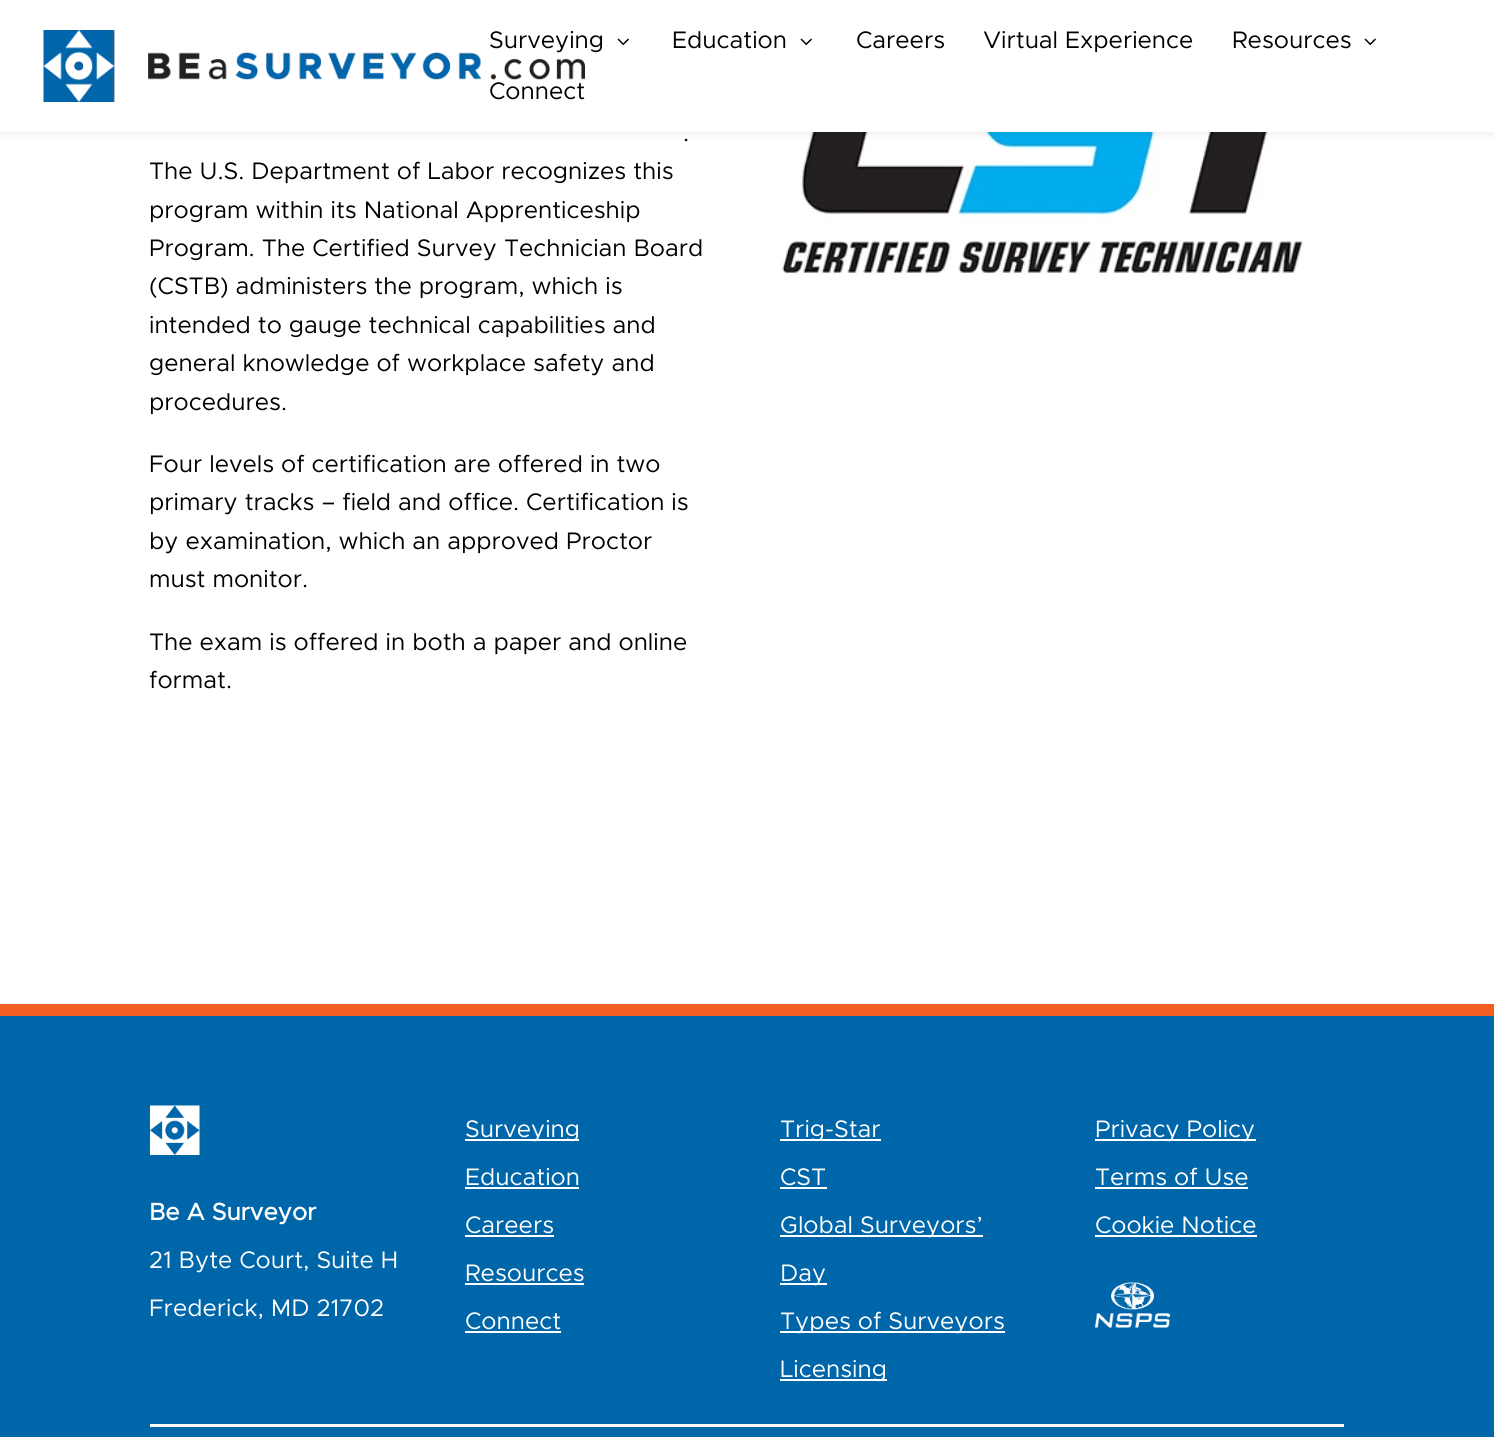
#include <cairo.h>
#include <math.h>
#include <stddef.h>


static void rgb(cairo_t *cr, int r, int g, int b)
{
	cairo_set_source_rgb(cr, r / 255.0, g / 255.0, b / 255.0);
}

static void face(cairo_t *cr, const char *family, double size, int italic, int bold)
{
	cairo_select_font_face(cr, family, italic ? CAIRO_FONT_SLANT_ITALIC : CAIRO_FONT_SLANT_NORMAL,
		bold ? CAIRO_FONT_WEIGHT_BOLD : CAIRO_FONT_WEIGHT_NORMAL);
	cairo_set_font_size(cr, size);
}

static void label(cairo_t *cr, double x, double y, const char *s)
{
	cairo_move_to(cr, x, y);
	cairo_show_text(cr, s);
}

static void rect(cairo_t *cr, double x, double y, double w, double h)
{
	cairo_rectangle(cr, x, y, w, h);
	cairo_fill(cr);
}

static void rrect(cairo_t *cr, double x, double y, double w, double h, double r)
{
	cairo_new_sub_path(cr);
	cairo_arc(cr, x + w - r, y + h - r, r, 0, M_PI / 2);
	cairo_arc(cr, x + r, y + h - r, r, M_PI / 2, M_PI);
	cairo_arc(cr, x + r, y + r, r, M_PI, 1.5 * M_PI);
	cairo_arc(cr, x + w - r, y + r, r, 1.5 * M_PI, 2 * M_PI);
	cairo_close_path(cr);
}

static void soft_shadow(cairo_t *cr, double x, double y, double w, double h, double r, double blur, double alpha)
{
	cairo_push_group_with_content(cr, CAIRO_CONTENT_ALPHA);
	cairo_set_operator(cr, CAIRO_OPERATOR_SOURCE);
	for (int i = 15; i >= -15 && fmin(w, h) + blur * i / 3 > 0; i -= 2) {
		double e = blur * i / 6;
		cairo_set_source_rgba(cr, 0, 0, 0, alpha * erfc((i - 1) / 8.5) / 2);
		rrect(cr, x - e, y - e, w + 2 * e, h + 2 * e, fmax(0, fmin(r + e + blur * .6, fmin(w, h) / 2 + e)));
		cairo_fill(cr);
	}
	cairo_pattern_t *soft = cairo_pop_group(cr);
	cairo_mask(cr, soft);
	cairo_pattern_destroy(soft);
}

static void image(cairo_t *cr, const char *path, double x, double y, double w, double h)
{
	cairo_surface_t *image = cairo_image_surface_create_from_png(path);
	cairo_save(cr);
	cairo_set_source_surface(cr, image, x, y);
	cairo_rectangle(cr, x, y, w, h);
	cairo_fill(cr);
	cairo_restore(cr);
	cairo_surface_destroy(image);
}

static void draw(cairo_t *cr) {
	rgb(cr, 255, 255, 255);
	cairo_paint(cr);
	image(cr, "image2.png", 780, 132, 564, 143);
	rgb(cr, 0, 0, 0);
	soft_shadow(cr, 0, 0, 1494, 132, 0, 5, 0.1);
	rgb(cr, 255, 255, 255);
	rect(cr, 0, 0, 1494, 132);
	image(cr, "image0.png", 43, 30, 542, 72);
	face(cr, "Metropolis", 24, 0, 0);
	rgb(cr, 0, 0, 0);
	label(cr, 489, 48, "Surveying");
	image(cr, "image1.png", 617, 38, 12, 7);
	label(cr, 672, 48, "Education");
	image(cr, "image1.png", 800, 38, 12, 7);
	label(cr, 856, 48, "Careers");
	label(cr, 983, 48, "Virtual Experience");
	label(cr, 1232, 48, "Resources");
	image(cr, "image1.png", 1364, 38, 12, 7);
	label(cr, 489, 99, "Connect");
	label(cr, 683, 141, ".");
	label(cr, 149, 179, "The U.S. Department of Labor recognizes this");
	label(cr, 149, 218, "program within its National Apprenticeship");
	label(cr, 149, 256, "Program. The Certified Survey Technician Board");
	label(cr, 149, 294, "(CSTB) administers the program, which is");
	label(cr, 149, 333, "intended to gauge technical capabilities and");
	label(cr, 149, 371, "general knowledge of workplace safety and");
	label(cr, 149, 410, "procedures.");
	label(cr, 149, 472, "Four levels of certification are offered in two");
	label(cr, 149, 510, "primary tracks – field and office. Certification is");
	label(cr, 149, 549, "by examination, which an approved Proctor");
	label(cr, 149, 587, "must monitor.");
	label(cr, 149, 650, "The exam is offered in both a paper and online");
	label(cr, 149, 688, "format.");
	rgb(cr, 0, 102, 170);
	rect(cr, 0, 1016, 1494, 421);
	rgb(cr, 241, 95, 34);
	rect(cr, 0, 1004, 1494, 12);
	rgb(cr, 255, 255, 255);
	rect(cr, 150, 1424, 1194, 3);
	rect(cr, 465, 1139, 114, 2);
	label(cr, 465, 1137, "Surveying");
	label(cr, 465, 1185, "Education");
	rect(cr, 465, 1187, 114, 2);
	label(cr, 465, 1233, "Careers");
	rect(cr, 465, 1235, 89, 2);
	label(cr, 465, 1281, "Resources");
	rect(cr, 465, 1283, 119, 2);
	label(cr, 465, 1329, "Connect");
	rect(cr, 465, 1331, 96, 2);
	rect(cr, 780, 1139, 101, 2);
	label(cr, 780, 1137, "Trig-Star");
	label(cr, 780, 1185, "CST");
	rect(cr, 780, 1187, 47, 2);
	rect(cr, 780, 1235, 203, 2);
	label(cr, 780, 1233, "Global Surveyors’");
	rect(cr, 780, 1283, 47, 2);
	label(cr, 780, 1281, "Day");
	rect(cr, 780, 1331, 225, 2);
	label(cr, 780, 1329, "Types of Surveyors");
	rect(cr, 780, 1379, 107, 2);
	label(cr, 780, 1377, "Licensing");
	rect(cr, 1095, 1139, 161, 2);
	label(cr, 1095, 1137, "Privacy Policy");
	label(cr, 1095, 1185, "Terms of Use");
	rect(cr, 1095, 1187, 153, 2);
	label(cr, 1095, 1233, "Cookie Notice");
	rect(cr, 1095, 1235, 162, 2);
	image(cr, "image3.png", 1095, 1282, 75, 46);
	image(cr, "image4.png", 150, 1105, 50, 50);
	face(cr, "Metropolis", 24, 0, 1);
	label(cr, 149, 1220, "Be A Surveyor");
	face(cr, "Metropolis", 24, 0, 0);
	label(cr, 149, 1268, "21 Byte Court, Suite H");
	label(cr, 149, 1316, "Frederick, MD 21702");
}

int main(void) {
	cairo_surface_t *surface = cairo_image_surface_create(CAIRO_FORMAT_RGB24, 1494, 1437);
	cairo_t *cr = cairo_create(surface);
	cairo_font_options_t *options = cairo_font_options_create();
	cairo_font_options_set_hint_metrics(options, CAIRO_HINT_METRICS_OFF);
	cairo_font_options_set_hint_style(options, CAIRO_HINT_STYLE_NONE);
	cairo_set_font_options(cr, options);
	cairo_set_miter_limit(cr, 4);
	draw(cr);
	cairo_surface_write_to_png(surface, "render.png");
	cairo_font_options_destroy(options);
	cairo_destroy(cr);
	cairo_surface_destroy(surface);
	return 0;
}
